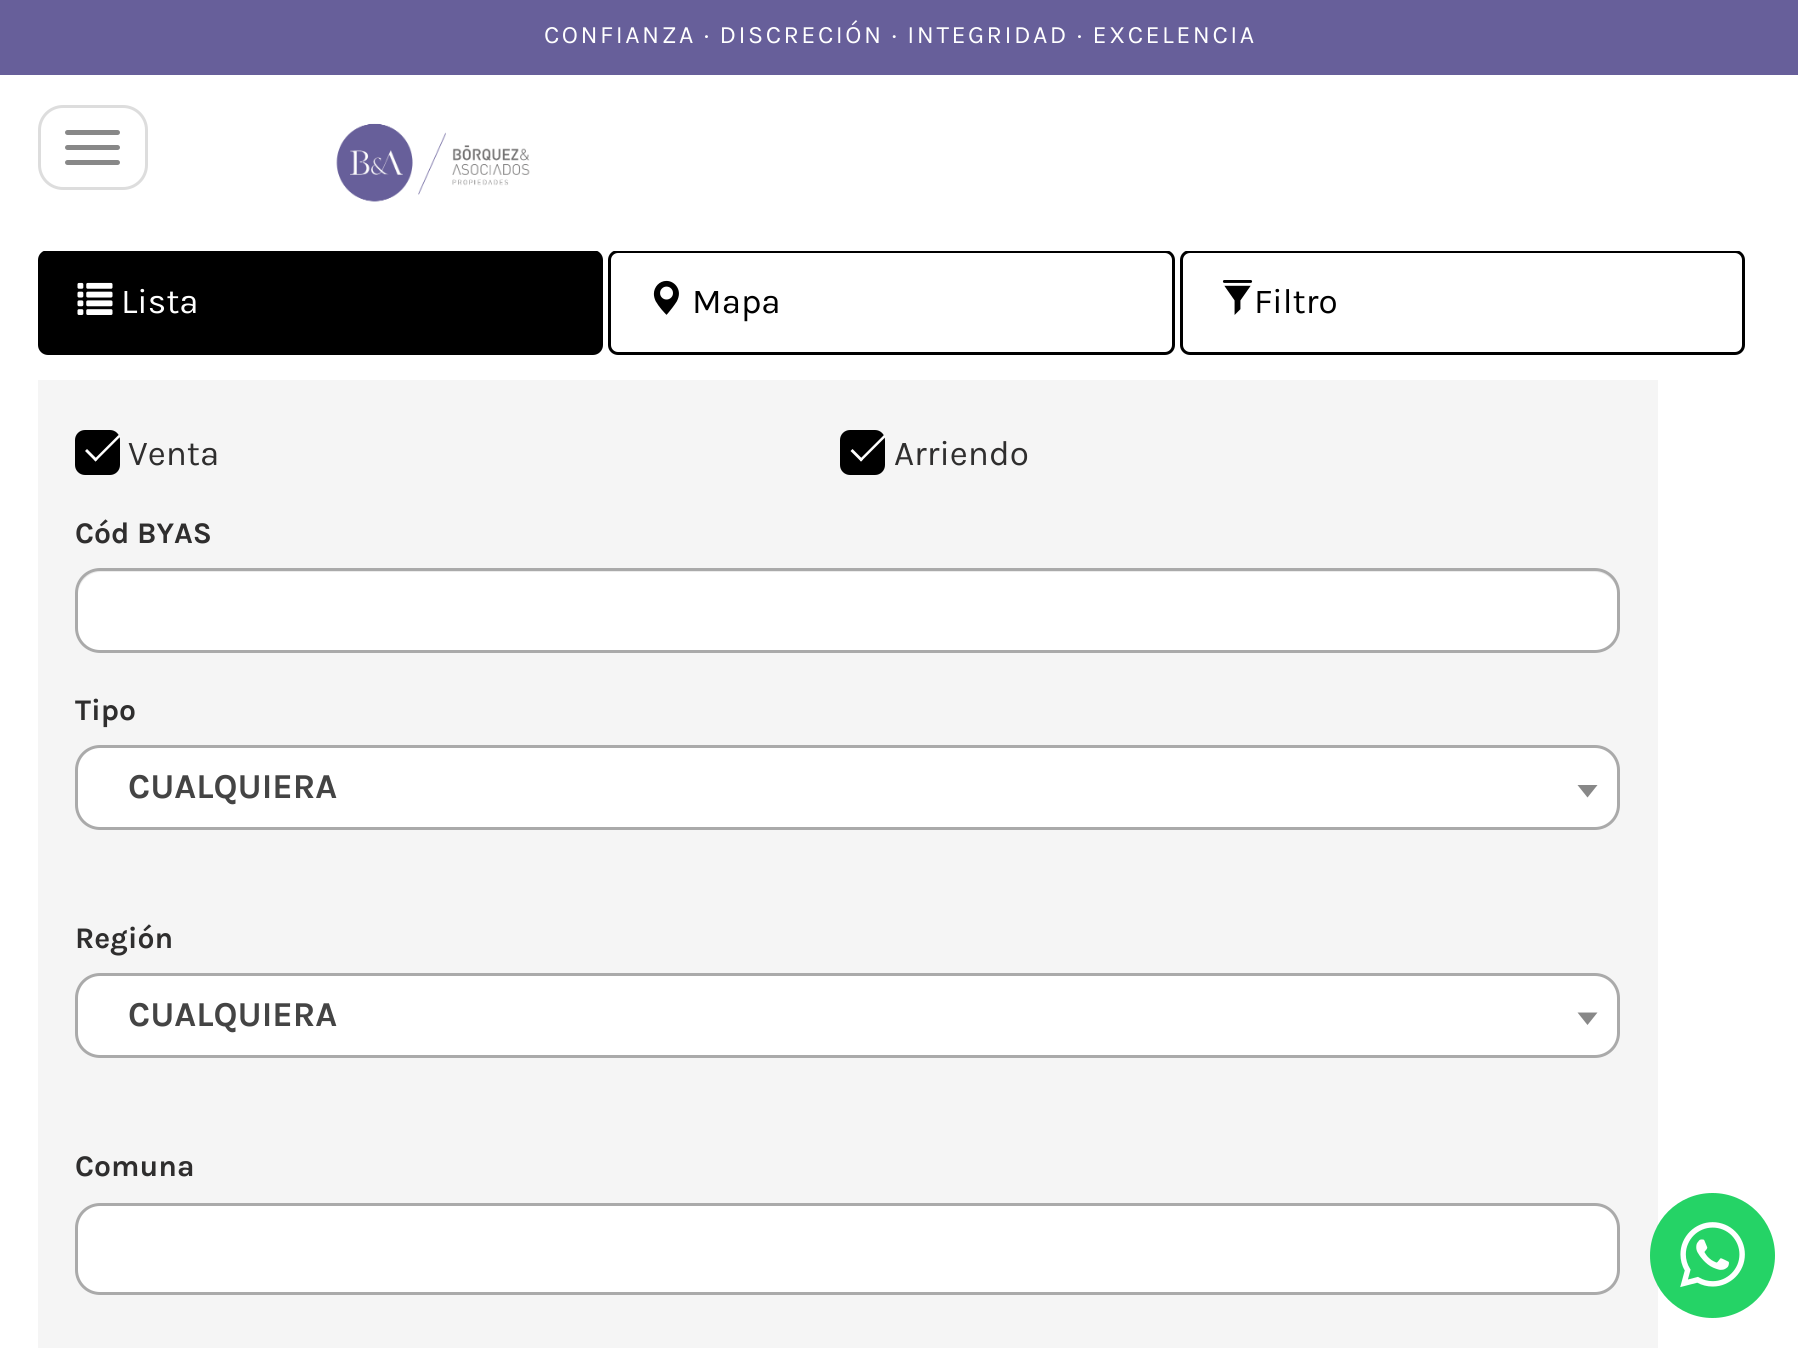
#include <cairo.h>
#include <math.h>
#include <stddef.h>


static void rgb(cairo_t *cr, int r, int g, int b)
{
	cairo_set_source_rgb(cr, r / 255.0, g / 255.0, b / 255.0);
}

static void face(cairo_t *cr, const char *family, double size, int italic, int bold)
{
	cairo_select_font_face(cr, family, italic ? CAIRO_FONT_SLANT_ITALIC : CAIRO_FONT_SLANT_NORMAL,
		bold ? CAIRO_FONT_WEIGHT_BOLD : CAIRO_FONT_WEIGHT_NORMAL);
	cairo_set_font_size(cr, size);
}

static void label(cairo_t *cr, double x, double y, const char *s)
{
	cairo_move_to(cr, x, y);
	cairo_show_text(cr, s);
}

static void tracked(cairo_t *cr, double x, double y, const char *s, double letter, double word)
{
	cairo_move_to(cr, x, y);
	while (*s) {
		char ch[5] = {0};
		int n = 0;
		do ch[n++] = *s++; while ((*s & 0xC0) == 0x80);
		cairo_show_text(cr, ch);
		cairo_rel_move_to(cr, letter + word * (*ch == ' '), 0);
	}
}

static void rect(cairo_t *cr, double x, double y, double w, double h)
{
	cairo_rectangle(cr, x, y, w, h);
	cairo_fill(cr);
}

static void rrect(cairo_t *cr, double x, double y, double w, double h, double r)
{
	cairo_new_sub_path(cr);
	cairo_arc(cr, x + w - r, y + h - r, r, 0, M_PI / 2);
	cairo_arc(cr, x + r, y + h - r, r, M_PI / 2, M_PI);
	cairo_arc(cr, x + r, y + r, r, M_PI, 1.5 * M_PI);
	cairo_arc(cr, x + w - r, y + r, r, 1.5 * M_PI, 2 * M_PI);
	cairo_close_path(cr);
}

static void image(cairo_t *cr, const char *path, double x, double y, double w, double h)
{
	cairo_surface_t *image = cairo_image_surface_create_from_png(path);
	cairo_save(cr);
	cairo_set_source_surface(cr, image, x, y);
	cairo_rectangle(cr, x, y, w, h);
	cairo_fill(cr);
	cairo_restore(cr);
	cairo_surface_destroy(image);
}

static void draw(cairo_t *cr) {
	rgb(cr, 255, 255, 255);
	cairo_paint(cr);
	rgb(cr, 103, 95, 154);
	rect(cr, 0, 0, 1798, 75);
	face(cr, "Karla", 25, 0, 0);
	rgb(cr, 255, 255, 255);
	tracked(cr, 544, 43, "CONFIANZA · DISCRECIÓN · INTEGRIDAD · EXCELENCIA", 2.5, 0);
	rgb(cr, 0, 0, 0);
	rrect(cr, 39.5, 251.5, 562, 102, 8.5);
	cairo_fill_preserve(cr);
	cairo_set_line_width(cr, 3);
	cairo_stroke(cr);
	rrect(cr, 609.5, 251.5, 564, 102, 8.5);
	cairo_stroke(cr);
	rrect(cr, 1181.5, 251.5, 562, 102, 8.5);
	cairo_stroke(cr);
	rgb(cr, 255, 255, 255);
	rect(cr, 43, 250, 1697, 1);
	rrect(cr, 39.5, 106.5, 107, 82, 23.5);
	rgb(cr, 221, 221, 221);
	cairo_stroke(cr);
	rgb(cr, 136, 136, 136);
	rrect(cr, 65, 130, 55, 5, 2.5);
	cairo_fill(cr);
	rrect(cr, 65, 145, 55, 5, 2.5);
	cairo_fill(cr);
	rrect(cr, 65, 160, 55, 5, 2.5);
	cairo_fill(cr);
	image(cr, "image0.png", 336, 123, 194, 79);
	image(cr, "image1.png", 77, 282, 36, 33);
	face(cr, "Karla", 35, 0, 0);
	rgb(cr, 255, 255, 255);
	label(cr, 121, 313, "Lista");
	image(cr, "image2.png", 653, 280, 26, 35);
	rgb(cr, 0, 0, 0);
	label(cr, 692, 313, "Mapa");
	image(cr, "image3.png", 1222, 280, 31, 35);
	label(cr, 1254, 313, "Filtro");
	rgb(cr, 245, 245, 245);
	rect(cr, 38, 380, 1620, 968);
	rgb(cr, 0, 0, 0);
	rrect(cr, 77.5, 432.5, 40, 40, 7.5);
	cairo_fill_preserve(cr);
	cairo_set_line_width(cr, 5);
	cairo_stroke(cr);
	rgb(cr, 255, 255, 255);
	cairo_new_path(cr);
	cairo_move_to(cr, 94, 459.5);
	cairo_line_to(cr, 118.5, 435);
	cairo_line_to(cr, 120.5, 436.5);
	cairo_line_to(cr, 95.5, 461.5);
	cairo_close_path(cr);
	cairo_fill(cr);
	cairo_new_path(cr);
	cairo_move_to(cr, 85, 451);
	cairo_line_to(cr, 87, 449);
	cairo_line_to(cr, 97.5, 459.5);
	cairo_line_to(cr, 95.5, 461.5);
	cairo_close_path(cr);
	cairo_fill(cr);
	rgb(cr, 47, 46, 46);
	label(cr, 128, 465, "Venta");
	rgb(cr, 0, 0, 0);
	rrect(cr, 842.5, 432.5, 40, 40, 7.5);
	cairo_fill_preserve(cr);
	cairo_stroke(cr);
	rgb(cr, 255, 255, 255);
	cairo_new_path(cr);
	cairo_move_to(cr, 859.5, 459.5);
	cairo_line_to(cr, 884, 435);
	cairo_line_to(cr, 886, 436.5);
	cairo_line_to(cr, 861, 461.5);
	cairo_close_path(cr);
	cairo_fill(cr);
	cairo_new_path(cr);
	cairo_move_to(cr, 850.5, 451);
	cairo_line_to(cr, 852.5, 449);
	cairo_line_to(cr, 863, 459.5);
	cairo_line_to(cr, 861, 461.5);
	cairo_close_path(cr);
	cairo_fill(cr);
	rgb(cr, 47, 46, 46);
	label(cr, 894, 465, "Arriendo");
	face(cr, "Karla", 30, 0, 1);
	label(cr, 75, 543, "Cód BYAS");
	rgb(cr, 255, 255, 255);
	rrect(cr, 75, 568, 1545, 85, 25);
	cairo_fill(cr);
	rgb(cr, 236, 236, 236);
	cairo_new_path(cr);
	cairo_move_to(cr, 100, 572);
	cairo_line_to(cr, 1595, 572);
	cairo_curve_to(cr, 1607, 572, 1618, 583, 1618, 595);
	cairo_curve_to(cr, 1618, 581, 1609, 570, 1595, 570);
	cairo_line_to(cr, 101, 570);
	cairo_curve_to(cr, 87, 570, 78, 581, 78, 595);
	cairo_curve_to(cr, 78, 583, 88, 572, 100, 572);
	cairo_close_path(cr);
	cairo_fill(cr);
	rrect(cr, 76.5, 569.5, 1542, 82, 23.5);
	rgb(cr, 170, 170, 170);
	cairo_set_line_width(cr, 3);
	cairo_stroke(cr);
	rgb(cr, 47, 46, 46);
	label(cr, 75, 720, "Tipo");
	rgb(cr, 255, 255, 255);
	rrect(cr, 76.5, 746.5, 1542, 82, 23.5);
	cairo_fill_preserve(cr);
	rgb(cr, 170, 170, 170);
	cairo_stroke(cr);
	face(cr, "Karla", 35, 0, 1);
	rgb(cr, 68, 68, 68);
	label(cr, 128, 798, "CUALQUIERA");
	rgb(cr, 136, 136, 136);
	cairo_new_path(cr);
	cairo_move_to(cr, 1577.5, 785);
	cairo_line_to(cr, 1597.5, 785);
	cairo_line_to(cr, 1587.5, 797.5);
	cairo_close_path(cr);
	cairo_fill(cr);
	face(cr, "Karla", 30, 0, 1);
	rgb(cr, 47, 46, 46);
	label(cr, 75, 948, "Región");
	rgb(cr, 255, 255, 255);
	rrect(cr, 76.5, 974.5, 1542, 82, 23.5);
	cairo_fill_preserve(cr);
	rgb(cr, 170, 170, 170);
	cairo_stroke(cr);
	face(cr, "Karla", 35, 0, 1);
	rgb(cr, 68, 68, 68);
	label(cr, 128, 1026, "CUALQUIERA");
	rgb(cr, 136, 136, 136);
	cairo_new_path(cr);
	cairo_move_to(cr, 1577.5, 1012.5);
	cairo_line_to(cr, 1597.5, 1012.5);
	cairo_line_to(cr, 1587.5, 1025);
	cairo_close_path(cr);
	cairo_fill(cr);
	face(cr, "Karla", 30, 0, 1);
	rgb(cr, 47, 46, 46);
	label(cr, 75, 1176, "Comuna");
	rgb(cr, 255, 255, 255);
	rrect(cr, 76.5, 1204.5, 1542, 89, 23.5);
	cairo_fill_preserve(cr);
	rgb(cr, 170, 170, 170);
	cairo_stroke(cr);
	rgb(cr, 37, 211, 102);
	cairo_arc(cr, 1712.5, 1255.5, 62.5, 0, 2 * M_PI);
	cairo_fill(cr);
	image(cr, "image4.png", 1680, 1222, 65, 66);
}

int main(void) {
	cairo_surface_t *surface = cairo_image_surface_create(CAIRO_FORMAT_RGB24, 1798, 1348);
	cairo_t *cr = cairo_create(surface);
	cairo_font_options_t *options = cairo_font_options_create();
	cairo_font_options_set_hint_metrics(options, CAIRO_HINT_METRICS_OFF);
	cairo_font_options_set_hint_style(options, CAIRO_HINT_STYLE_NONE);
	cairo_set_font_options(cr, options);
	cairo_set_miter_limit(cr, 4);
	draw(cr);
	cairo_surface_write_to_png(surface, "render.png");
	cairo_font_options_destroy(options);
	cairo_destroy(cr);
	cairo_surface_destroy(surface);
	return 0;
}
